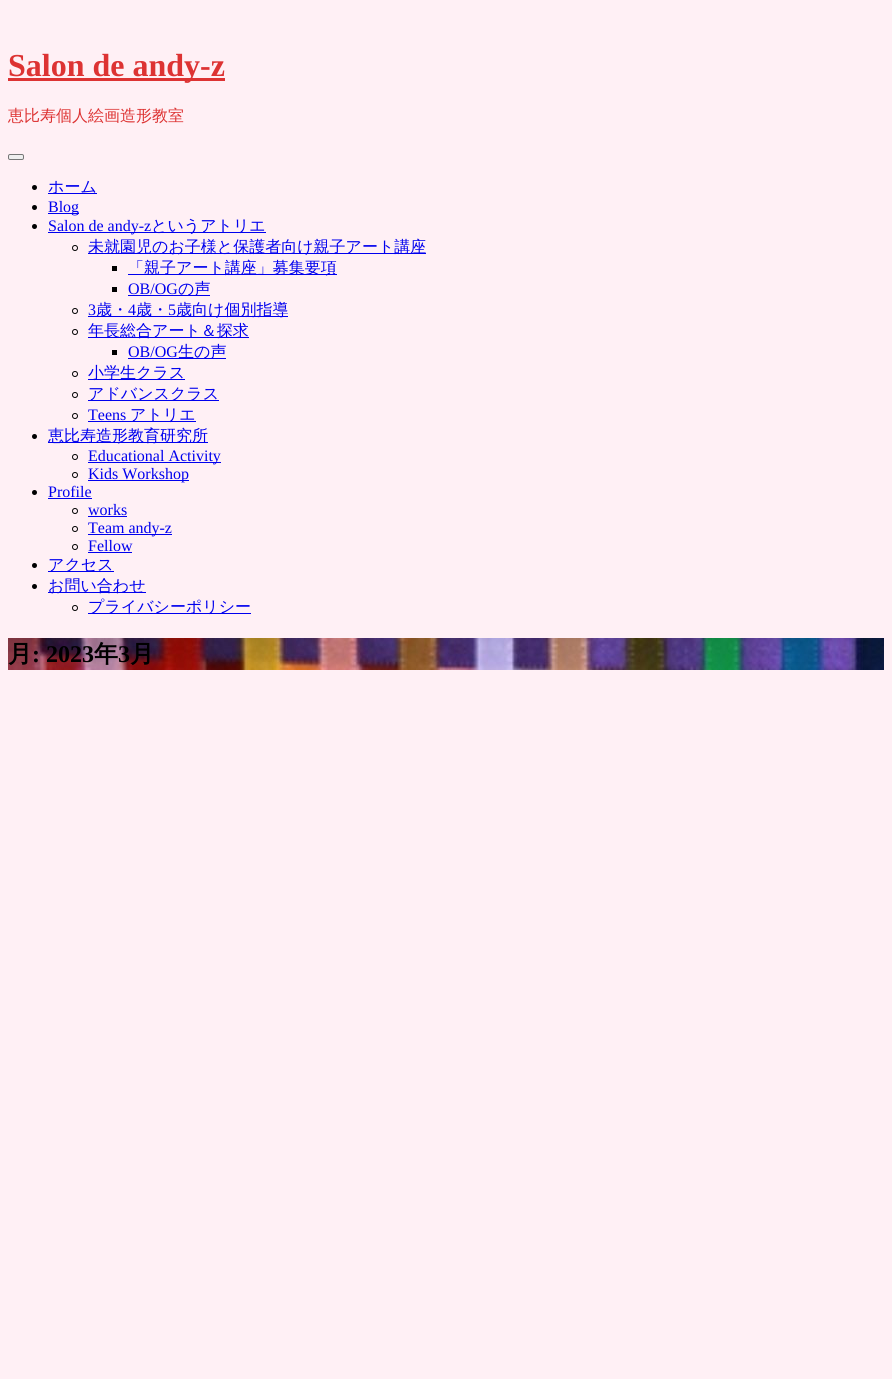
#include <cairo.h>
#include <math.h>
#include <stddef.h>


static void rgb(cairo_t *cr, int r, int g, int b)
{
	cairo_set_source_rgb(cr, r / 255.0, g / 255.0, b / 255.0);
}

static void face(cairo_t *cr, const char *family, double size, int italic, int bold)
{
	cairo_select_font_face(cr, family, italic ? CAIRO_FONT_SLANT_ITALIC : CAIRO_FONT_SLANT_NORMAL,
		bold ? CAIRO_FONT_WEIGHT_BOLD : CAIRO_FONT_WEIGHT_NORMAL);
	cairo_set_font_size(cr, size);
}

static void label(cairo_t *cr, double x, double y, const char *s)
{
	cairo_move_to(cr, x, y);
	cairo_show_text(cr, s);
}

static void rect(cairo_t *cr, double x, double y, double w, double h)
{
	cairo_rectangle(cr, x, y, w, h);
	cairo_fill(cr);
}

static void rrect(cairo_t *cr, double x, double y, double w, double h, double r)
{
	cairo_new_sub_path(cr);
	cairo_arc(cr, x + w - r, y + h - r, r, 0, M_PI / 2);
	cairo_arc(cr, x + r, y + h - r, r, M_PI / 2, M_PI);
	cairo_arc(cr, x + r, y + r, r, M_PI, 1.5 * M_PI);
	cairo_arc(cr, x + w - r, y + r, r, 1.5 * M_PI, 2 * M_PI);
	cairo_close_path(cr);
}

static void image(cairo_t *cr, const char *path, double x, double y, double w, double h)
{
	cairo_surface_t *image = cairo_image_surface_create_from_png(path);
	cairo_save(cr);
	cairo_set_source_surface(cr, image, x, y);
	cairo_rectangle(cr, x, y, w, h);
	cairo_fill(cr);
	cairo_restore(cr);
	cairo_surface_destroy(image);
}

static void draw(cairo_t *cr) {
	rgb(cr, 255, 240, 245);
	cairo_paint(cr);
	rgb(cr, 221, 51, 51);
	rect(cr, 8, 78, 217, 3);
	face(cr, "Liberation Serif", 32, 0, 1);
	label(cr, 8, 76, "Salon de andy-z");
	face(cr, "WenQuanYi Zen Hei Medium", 16, 0, 0);
	label(cr, 8, 121, "恵比寿個人絵画造形教室");
	rgb(cr, 239, 239, 239);
	rrect(cr, 8.5, 154.5, 15, 5, 1.5);
	cairo_fill_preserve(cr);
	rgb(cr, 118, 118, 118);
	cairo_set_line_width(cr, 1);
	cairo_stroke(cr);
	rgb(cr, 0, 0, 0);
	cairo_arc(cr, 34.5, 187.5, 2.5, 0, 2 * M_PI);
	cairo_fill(cr);
	rgb(cr, 0, 0, 238);
	rect(cr, 48, 193, 49, 1);
	label(cr, 48, 192, "ホーム");
	rgb(cr, 0, 0, 0);
	cairo_new_path(cr);
	cairo_arc(cr, 34.5, 207.5, 2.5, 0, 2 * M_PI);
	cairo_fill(cr);
	rgb(cr, 0, 0, 238);
	rect(cr, 48, 213, 31, 1);
	face(cr, "Liberation Serif", 16, 0, 0);
	label(cr, 48, 212, "Blog");
	rgb(cr, 0, 0, 0);
	cairo_new_path(cr);
	cairo_arc(cr, 34.5, 226.5, 2.5, 0, 2 * M_PI);
	cairo_fill(cr);
	rgb(cr, 0, 0, 238);
	rect(cr, 48, 232, 218, 1);
	label(cr, 48, 231, "Salon de andy-z");
	face(cr, "WenQuanYi Zen Hei Medium", 16, 0, 0);
	label(cr, 151, 231, "というアトリエ");
	cairo_new_path(cr);
	cairo_arc(cr, 75, 248, 2.5, 0, 2 * M_PI);
	rgb(cr, 0, 0, 0);
	cairo_stroke(cr);
	rgb(cr, 0, 0, 238);
	rect(cr, 88, 253, 338, 1);
	label(cr, 88, 252, "未就園児のお子様と保護者向け親子アート講座");
	rgb(cr, 0, 0, 0);
	rect(cr, 112, 266, 5, 5);
	rgb(cr, 0, 0, 238);
	rect(cr, 128, 274, 209, 1);
	label(cr, 128, 273, "「親子アート講座」募集要項");
	rgb(cr, 0, 0, 0);
	rect(cr, 112, 287, 5, 5);
	face(cr, "Liberation Serif", 16, 0, 0);
	rgb(cr, 0, 0, 238);
	label(cr, 128, 294, "OB/OG");
	rect(cr, 128, 295, 82, 1);
	face(cr, "WenQuanYi Zen Hei Medium", 16, 0, 0);
	label(cr, 178, 294, "の声");
	cairo_new_path(cr);
	cairo_arc(cr, 75, 311, 2.5, 0, 2 * M_PI);
	rgb(cr, 0, 0, 0);
	cairo_stroke(cr);
	face(cr, "Liberation Serif", 16, 0, 0);
	rgb(cr, 0, 0, 238);
	label(cr, 88, 315, "3");
	rect(cr, 88, 316, 200, 1);
	face(cr, "WenQuanYi Zen Hei Medium", 16, 0, 0);
	label(cr, 96, 315, "歳・");
	face(cr, "Liberation Serif", 16, 0, 0);
	label(cr, 128, 315, "4");
	face(cr, "WenQuanYi Zen Hei Medium", 16, 0, 0);
	label(cr, 136, 315, "歳・");
	face(cr, "Liberation Serif", 16, 0, 0);
	label(cr, 168, 315, "5");
	face(cr, "WenQuanYi Zen Hei Medium", 16, 0, 0);
	label(cr, 176, 315, "歳向け個別指導");
	cairo_new_path(cr);
	cairo_arc(cr, 75, 332, 2.5, 0, 2 * M_PI);
	rgb(cr, 0, 0, 0);
	cairo_stroke(cr);
	rgb(cr, 0, 0, 238);
	rect(cr, 88, 337, 161, 1);
	label(cr, 88, 336, "年長総合アート＆探求");
	rgb(cr, 0, 0, 0);
	rect(cr, 112, 350, 5, 5);
	face(cr, "Liberation Serif", 16, 0, 0);
	rgb(cr, 0, 0, 238);
	label(cr, 128, 357, "OB/OG");
	rect(cr, 128, 358, 98, 1);
	face(cr, "WenQuanYi Zen Hei Medium", 16, 0, 0);
	label(cr, 178, 357, "生の声");
	cairo_new_path(cr);
	cairo_arc(cr, 75, 374, 2.5, 0, 2 * M_PI);
	rgb(cr, 0, 0, 0);
	cairo_stroke(cr);
	rgb(cr, 0, 0, 238);
	rect(cr, 88, 379, 97, 1);
	label(cr, 88, 378, "小学生クラス");
	cairo_new_path(cr);
	cairo_arc(cr, 75, 395, 2.5, 0, 2 * M_PI);
	rgb(cr, 0, 0, 0);
	cairo_stroke(cr);
	rgb(cr, 0, 0, 238);
	rect(cr, 88, 400, 131, 1);
	label(cr, 88, 399, "アドバンスクラス");
	cairo_new_path(cr);
	cairo_arc(cr, 75, 416, 2.5, 0, 2 * M_PI);
	rgb(cr, 0, 0, 0);
	cairo_stroke(cr);
	face(cr, "Liberation Serif", 16, 0, 0);
	rgb(cr, 0, 0, 238);
	label(cr, 88, 420, "Teens");
	rect(cr, 88, 421, 108, 1);
	face(cr, "WenQuanYi Zen Hei Medium", 16, 0, 0);
	label(cr, 130, 420, "アトリエ");
	rgb(cr, 0, 0, 0);
	cairo_new_path(cr);
	cairo_arc(cr, 34.5, 436.5, 2.5, 0, 2 * M_PI);
	cairo_fill(cr);
	rgb(cr, 0, 0, 238);
	rect(cr, 48, 442, 160, 1);
	label(cr, 48, 441, "恵比寿造形教育研究所");
	cairo_new_path(cr);
	cairo_arc(cr, 75, 457, 2.5, 0, 2 * M_PI);
	rgb(cr, 0, 0, 0);
	cairo_stroke(cr);
	rgb(cr, 0, 0, 238);
	rect(cr, 88, 462, 133, 1);
	face(cr, "Liberation Serif", 16, 0, 0);
	label(cr, 88, 461, "Educational Activity");
	cairo_new_path(cr);
	cairo_arc(cr, 75, 475, 2.5, 0, 2 * M_PI);
	rgb(cr, 0, 0, 0);
	cairo_stroke(cr);
	rgb(cr, 0, 0, 238);
	rect(cr, 88, 480, 101, 1);
	label(cr, 88, 479, "Kids Workshop");
	rgb(cr, 0, 0, 0);
	cairo_new_path(cr);
	cairo_arc(cr, 34.5, 492.5, 2.5, 0, 2 * M_PI);
	cairo_fill(cr);
	rgb(cr, 0, 0, 238);
	label(cr, 48, 497, "Profile");
	rect(cr, 48, 498, 44, 1);
	cairo_new_path(cr);
	cairo_arc(cr, 75, 511, 2.5, 0, 2 * M_PI);
	rgb(cr, 0, 0, 0);
	cairo_stroke(cr);
	rgb(cr, 0, 0, 238);
	label(cr, 88, 515, "works");
	rect(cr, 88, 516, 39, 1);
	cairo_new_path(cr);
	cairo_arc(cr, 75, 529, 2.5, 0, 2 * M_PI);
	rgb(cr, 0, 0, 0);
	cairo_stroke(cr);
	rgb(cr, 0, 0, 238);
	rect(cr, 88, 534, 84, 1);
	label(cr, 88, 533, "Team andy-z");
	cairo_new_path(cr);
	cairo_arc(cr, 75, 547, 2.5, 0, 2 * M_PI);
	rgb(cr, 0, 0, 0);
	cairo_stroke(cr);
	rgb(cr, 0, 0, 238);
	label(cr, 88, 551, "Fellow");
	rect(cr, 88, 552, 44, 1);
	rgb(cr, 0, 0, 0);
	cairo_new_path(cr);
	cairo_arc(cr, 34.5, 565.5, 2.5, 0, 2 * M_PI);
	cairo_fill(cr);
	rgb(cr, 0, 0, 238);
	rect(cr, 48, 571, 66, 1);
	face(cr, "WenQuanYi Zen Hei Medium", 16, 0, 0);
	label(cr, 48, 570, "アクセス");
	rgb(cr, 0, 0, 0);
	cairo_new_path(cr);
	cairo_arc(cr, 34.5, 586.5, 2.5, 0, 2 * M_PI);
	cairo_fill(cr);
	rgb(cr, 0, 0, 238);
	rect(cr, 48, 592, 98, 1);
	label(cr, 48, 591, "お問い合わせ");
	cairo_new_path(cr);
	cairo_arc(cr, 75, 608, 2.5, 0, 2 * M_PI);
	rgb(cr, 0, 0, 0);
	cairo_stroke(cr);
	rgb(cr, 0, 0, 238);
	rect(cr, 88, 613, 163, 1);
	label(cr, 88, 612, "プライバシーポリシー");
	image(cr, "image0.png", 8, 638, 876, 32);
	face(cr, "WenQuanYi Zen Hei", 24, 0, 1);
	rgb(cr, 0, 0, 0);
	label(cr, 8, 662, "月");
	face(cr, "Liberation Serif", 24, 0, 1);
	label(cr, 32, 662, ": 2023");
	face(cr, "WenQuanYi Zen Hei", 24, 0, 1);
	label(cr, 94, 662, "年");
	face(cr, "Liberation Serif", 24, 0, 1);
	label(cr, 118, 662, "3");
	face(cr, "WenQuanYi Zen Hei", 24, 0, 1);
	label(cr, 130, 662, "月");
}

int main(void) {
	cairo_surface_t *surface = cairo_image_surface_create(CAIRO_FORMAT_RGB24, 892, 1379);
	cairo_t *cr = cairo_create(surface);
	cairo_font_options_t *options = cairo_font_options_create();
	cairo_font_options_set_hint_metrics(options, CAIRO_HINT_METRICS_OFF);
	cairo_font_options_set_hint_style(options, CAIRO_HINT_STYLE_NONE);
	cairo_set_font_options(cr, options);
	cairo_set_miter_limit(cr, 4);
	draw(cr);
	cairo_surface_write_to_png(surface, "render.png");
	cairo_font_options_destroy(options);
	cairo_destroy(cr);
	cairo_surface_destroy(surface);
	return 0;
}
